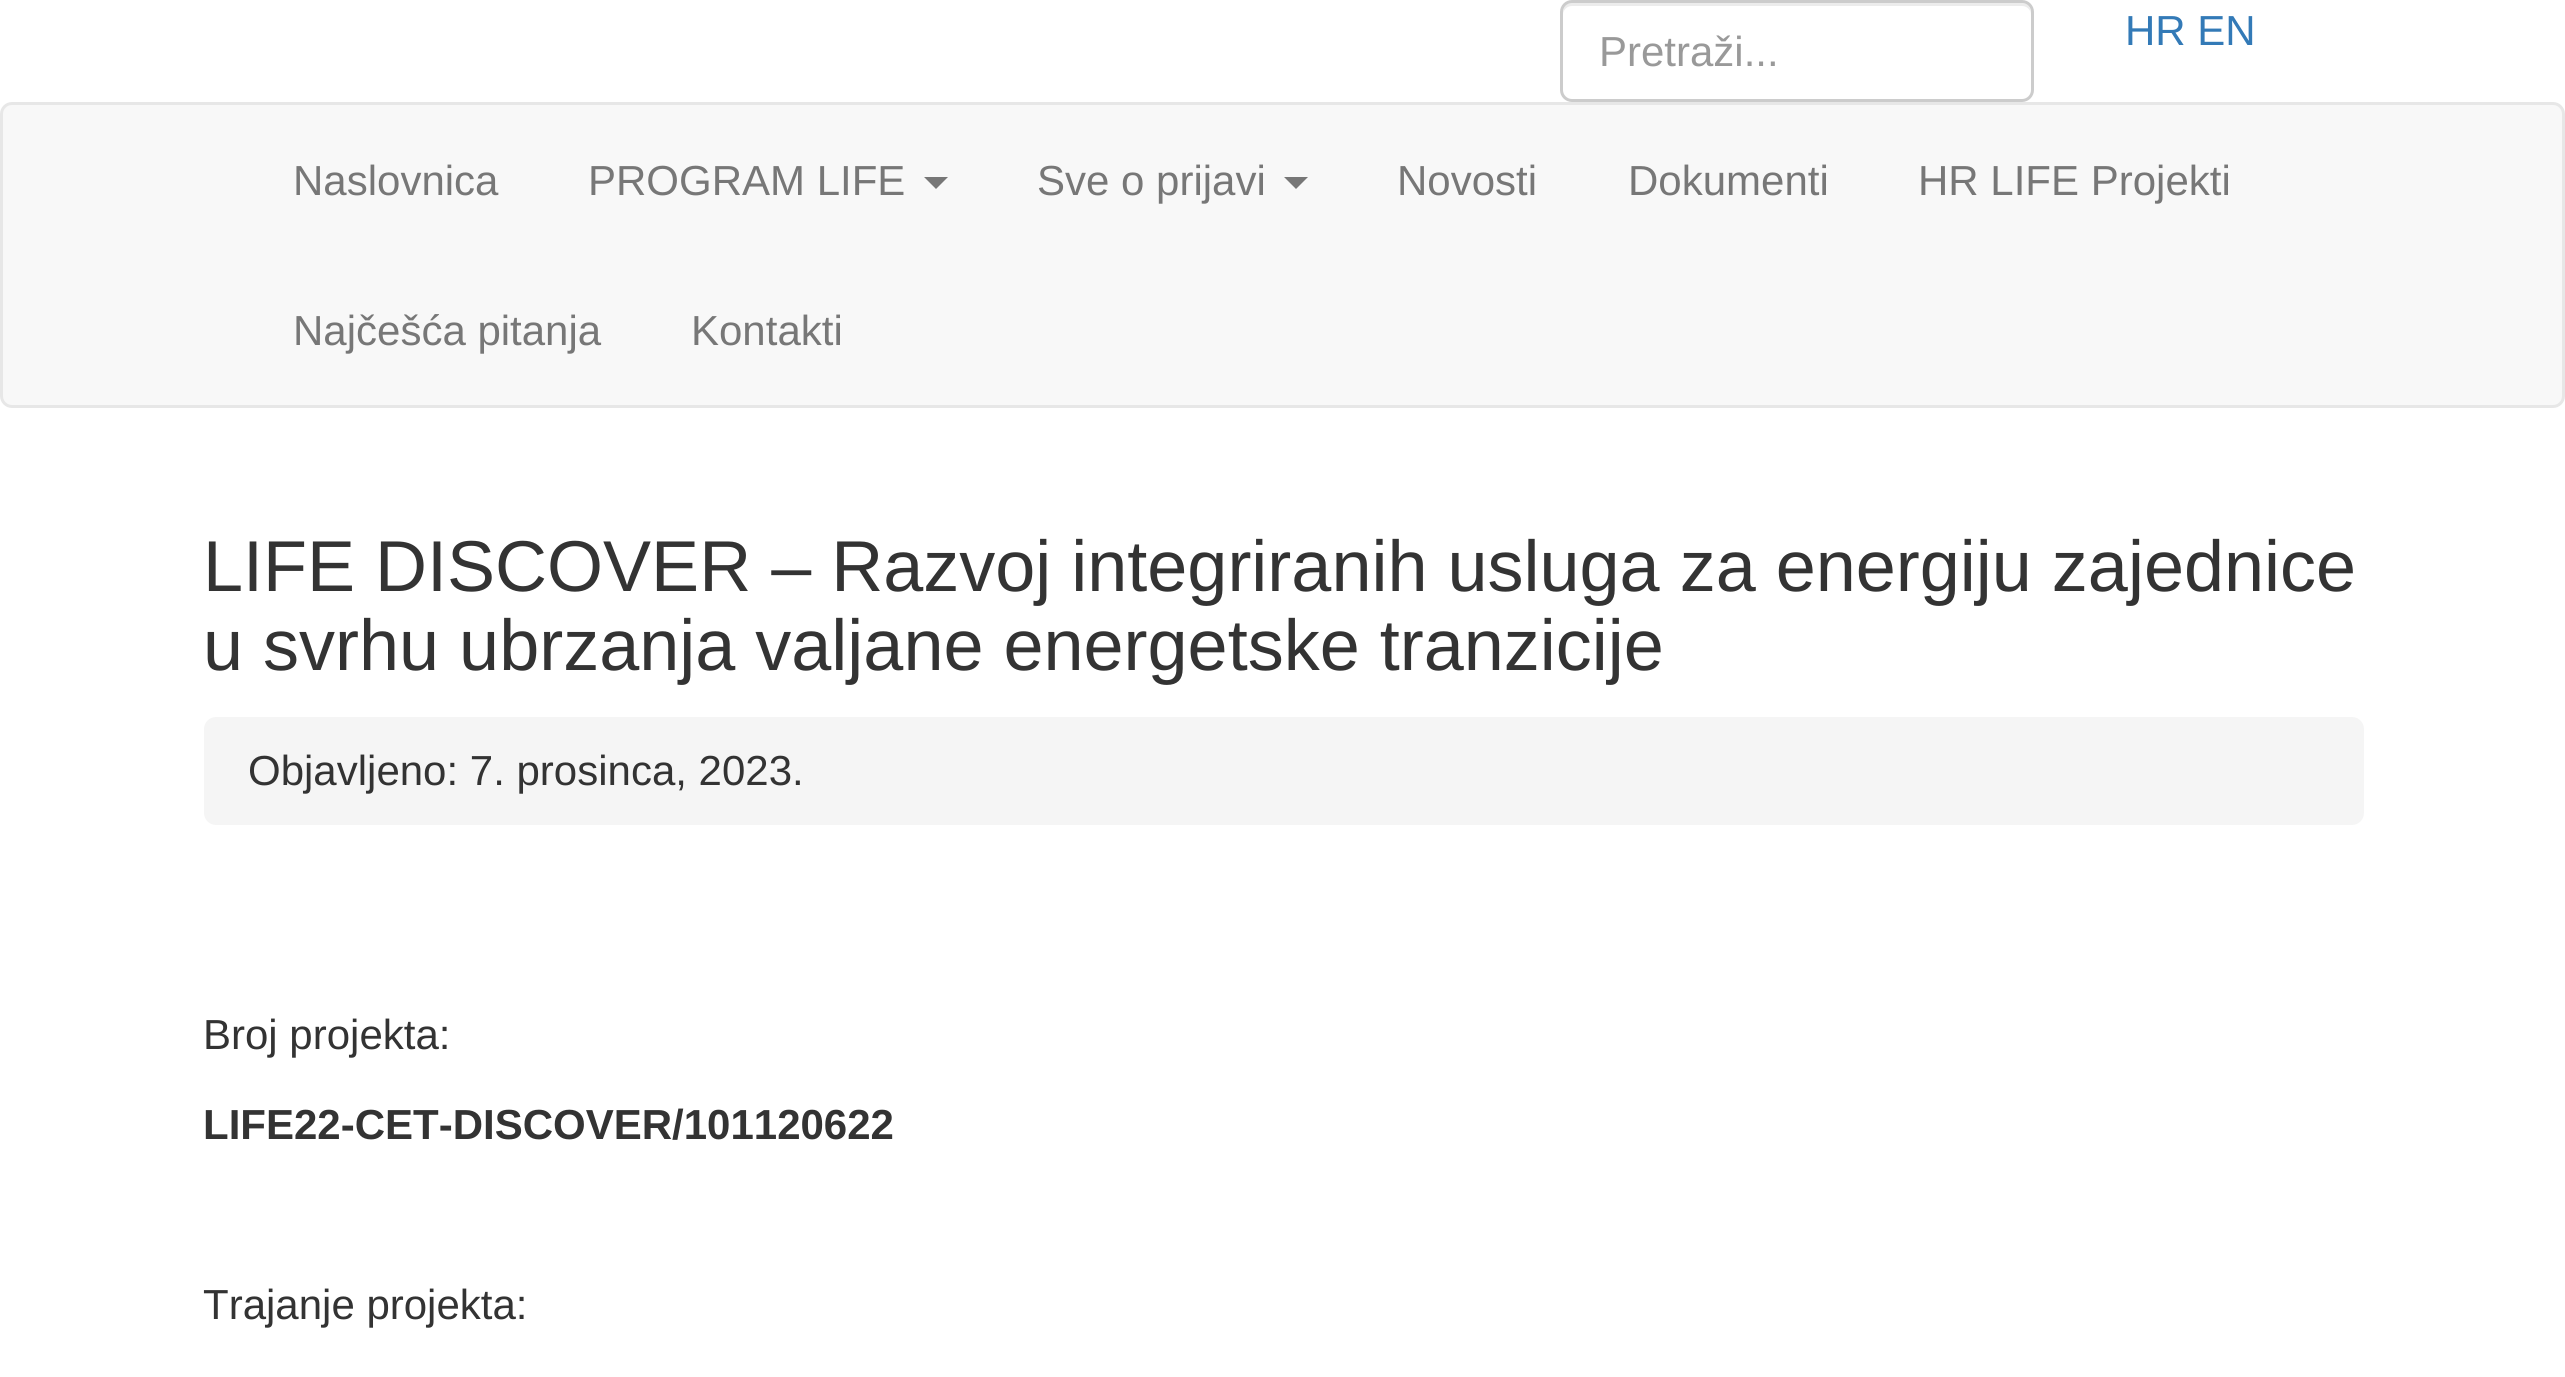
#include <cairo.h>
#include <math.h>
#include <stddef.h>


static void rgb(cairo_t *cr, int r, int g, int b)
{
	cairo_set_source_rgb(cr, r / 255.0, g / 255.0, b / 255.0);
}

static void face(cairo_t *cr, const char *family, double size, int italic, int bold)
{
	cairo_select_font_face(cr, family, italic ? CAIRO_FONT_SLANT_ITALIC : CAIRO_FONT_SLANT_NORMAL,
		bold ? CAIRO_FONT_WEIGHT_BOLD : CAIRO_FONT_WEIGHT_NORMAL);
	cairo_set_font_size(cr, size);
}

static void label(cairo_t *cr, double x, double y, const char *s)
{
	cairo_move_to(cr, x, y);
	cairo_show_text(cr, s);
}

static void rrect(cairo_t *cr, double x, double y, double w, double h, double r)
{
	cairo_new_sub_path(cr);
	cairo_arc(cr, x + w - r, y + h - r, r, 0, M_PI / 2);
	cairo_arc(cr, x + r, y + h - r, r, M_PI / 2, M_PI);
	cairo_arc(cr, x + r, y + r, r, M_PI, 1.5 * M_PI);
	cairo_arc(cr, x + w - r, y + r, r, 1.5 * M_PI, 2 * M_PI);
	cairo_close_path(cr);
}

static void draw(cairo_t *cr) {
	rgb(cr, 255, 255, 255);
	cairo_paint(cr);
	face(cr, "Liberation Sans", 42, 0, 0);
	rgb(cr, 51, 122, 183);
	label(cr, 2125, 45, "HR EN");
	rgb(cr, 236, 236, 236);
	cairo_new_path(cr);
	cairo_move_to(cr, 1572, 6);
	cairo_line_to(cr, 2022, 6);
	cairo_curve_to(cr, 2027, 6, 2031, 10, 2031, 15);
	cairo_curve_to(cr, 2031, 9, 2029, 3, 2022, 3);
	cairo_line_to(cr, 1570, 3);
	cairo_curve_to(cr, 1564, 4, 1563, 10, 1563, 15);
	cairo_curve_to(cr, 1563, 10, 1567, 6, 1572, 6);
	cairo_close_path(cr);
	cairo_fill(cr);
	rrect(cr, 1561.5, 1.5, 471, 99, 10.5);
	rgb(cr, 204, 204, 204);
	cairo_set_line_width(cr, 3);
	cairo_stroke(cr);
	rgb(cr, 153, 153, 153);
	label(cr, 1599, 66, "Pretraži...");
	rgb(cr, 248, 248, 248);
	rrect(cr, 1.5, 103.5, 2562, 303, 10.5);
	cairo_fill_preserve(cr);
	rgb(cr, 231, 231, 231);
	cairo_stroke(cr);
	rgb(cr, 119, 119, 119);
	label(cr, 293, 195, "Naslovnica");
	label(cr, 588, 195, "PROGRAM LIFE");
	cairo_new_path(cr);
	cairo_move_to(cr, 924, 177);
	cairo_line_to(cr, 948, 177);
	cairo_line_to(cr, 936, 189);
	cairo_close_path(cr);
	cairo_fill(cr);
	label(cr, 1037, 195, "Sve o prijavi");
	cairo_new_path(cr);
	cairo_move_to(cr, 1284, 177);
	cairo_line_to(cr, 1308, 177);
	cairo_line_to(cr, 1296, 189);
	cairo_close_path(cr);
	cairo_fill(cr);
	label(cr, 1397, 195, "Novosti");
	label(cr, 1628, 195, "Dokumenti");
	label(cr, 1918, 195, "HR LIFE Projekti");
	label(cr, 293, 345, "Najčešća pitanja");
	label(cr, 691, 345, "Kontakti");
	face(cr, "Liberation Sans", 72, 0, 0);
	rgb(cr, 51, 51, 51);
	label(cr, 203, 591, "LIFE DISCOVER – Razvoj integriranih usluga za energiju zajednice");
	label(cr, 203, 670, "u svrhu ubrzanja valjane energetske tranzicije");
	rgb(cr, 245, 245, 245);
	rrect(cr, 204, 717, 2160, 108, 12);
	cairo_fill(cr);
	face(cr, "Liberation Sans", 42, 0, 0);
	rgb(cr, 51, 51, 51);
	label(cr, 248, 785, "Objavljeno: 7. prosinca, 2023.");
	label(cr, 203, 1049, "Broj projekta:");
	face(cr, "Liberation Sans", 42, 0, 1);
	label(cr, 203, 1139, "LIFE22-CET-DISCOVER/101120622");
	face(cr, "Liberation Sans", 42, 0, 0);
	label(cr, 203, 1319, "Trajanje projekta:");
}

int main(void) {
	cairo_surface_t *surface = cairo_image_surface_create(CAIRO_FORMAT_RGB24, 2565, 1377);
	cairo_t *cr = cairo_create(surface);
	cairo_font_options_t *options = cairo_font_options_create();
	cairo_font_options_set_hint_metrics(options, CAIRO_HINT_METRICS_OFF);
	cairo_font_options_set_hint_style(options, CAIRO_HINT_STYLE_NONE);
	cairo_set_font_options(cr, options);
	cairo_set_miter_limit(cr, 4);
	draw(cr);
	cairo_surface_write_to_png(surface, "render.png");
	cairo_font_options_destroy(options);
	cairo_destroy(cr);
	cairo_surface_destroy(surface);
	return 0;
}
